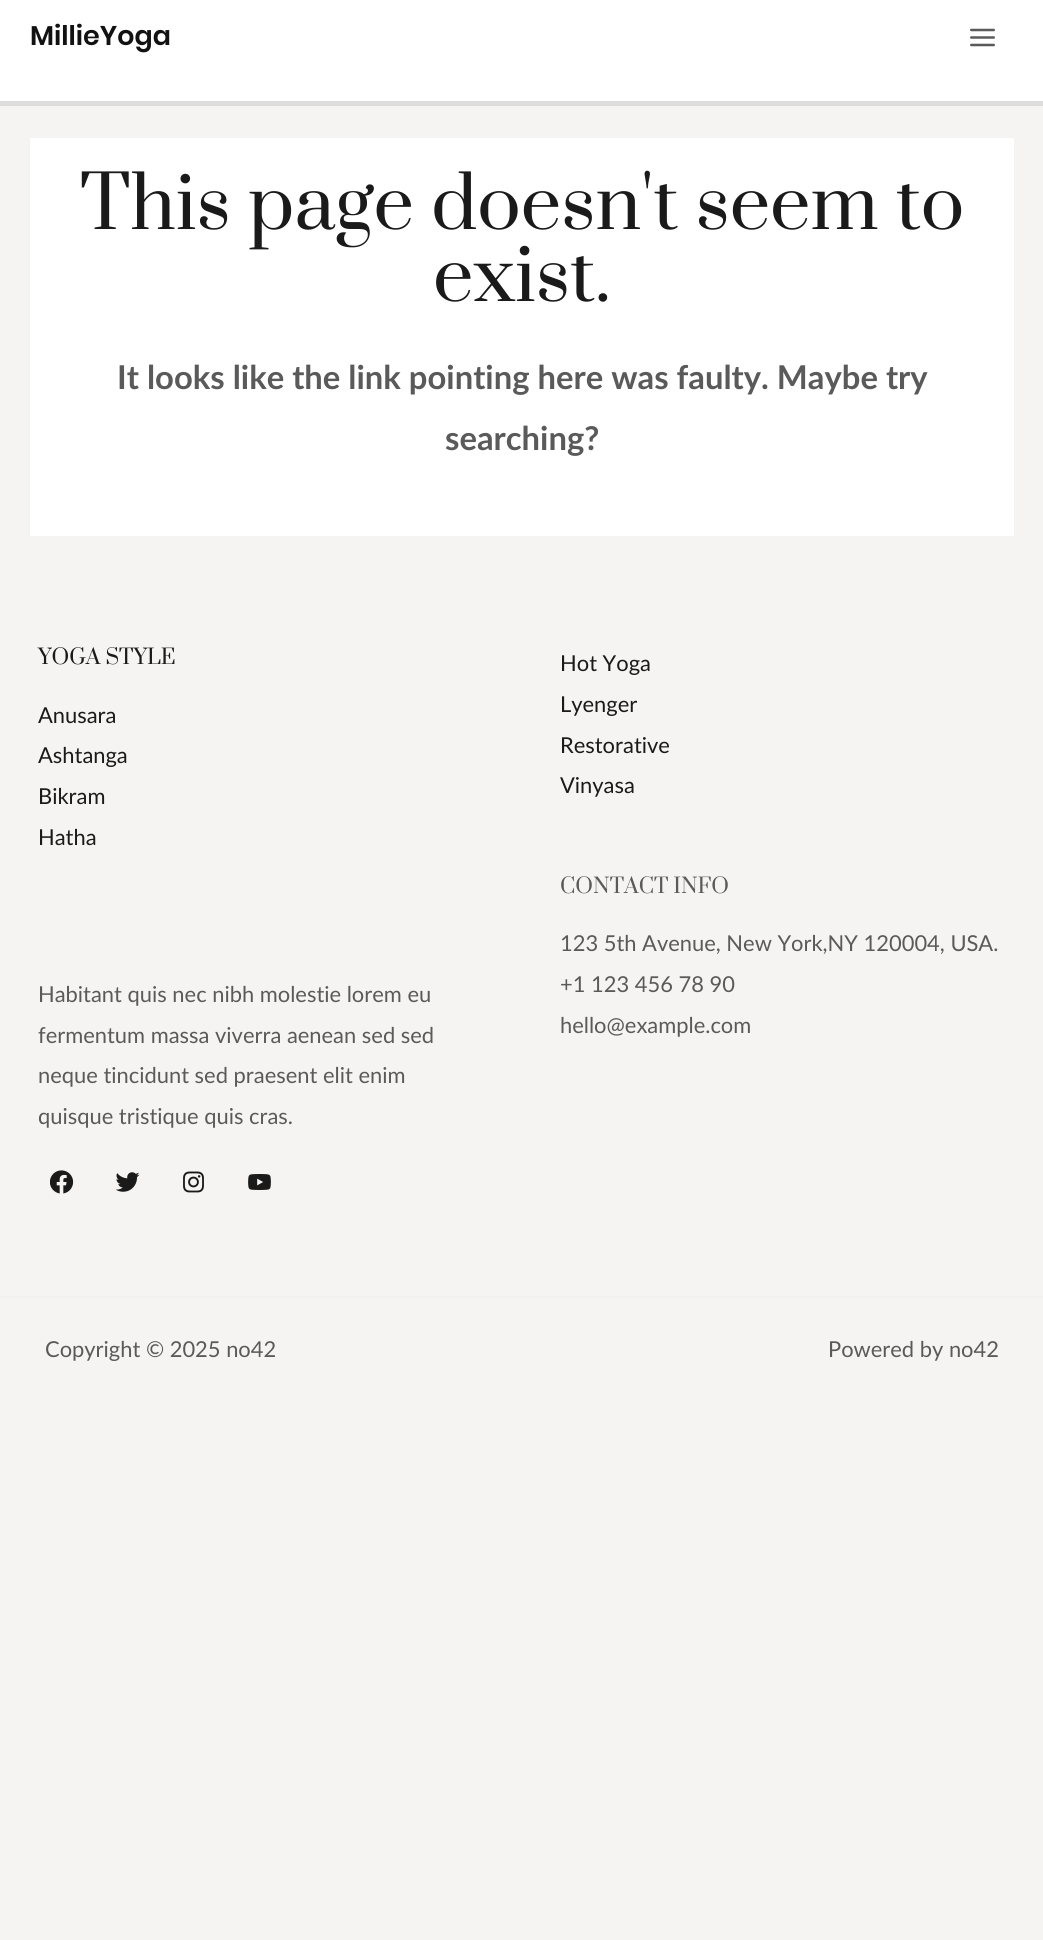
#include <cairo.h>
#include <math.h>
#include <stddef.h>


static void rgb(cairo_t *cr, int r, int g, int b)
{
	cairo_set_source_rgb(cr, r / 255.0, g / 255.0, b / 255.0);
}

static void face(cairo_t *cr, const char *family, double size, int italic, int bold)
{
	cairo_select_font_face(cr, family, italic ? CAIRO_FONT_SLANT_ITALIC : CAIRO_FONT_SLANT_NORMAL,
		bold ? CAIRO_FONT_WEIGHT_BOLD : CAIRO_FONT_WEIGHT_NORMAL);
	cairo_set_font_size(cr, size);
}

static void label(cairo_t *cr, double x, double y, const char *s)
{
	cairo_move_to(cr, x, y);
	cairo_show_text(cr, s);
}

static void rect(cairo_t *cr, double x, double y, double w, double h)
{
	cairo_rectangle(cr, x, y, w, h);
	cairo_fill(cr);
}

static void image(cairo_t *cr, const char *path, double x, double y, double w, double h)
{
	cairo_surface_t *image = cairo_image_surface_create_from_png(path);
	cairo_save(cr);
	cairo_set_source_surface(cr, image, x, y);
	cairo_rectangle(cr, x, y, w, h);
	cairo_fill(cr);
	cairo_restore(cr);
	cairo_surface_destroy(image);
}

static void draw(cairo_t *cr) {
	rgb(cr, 246, 244, 242);
	cairo_paint(cr);
	rgb(cr, 255, 255, 255);
	rect(cr, 0, 0, 1043, 101);
	rgb(cr, 221, 221, 221);
	rect(cr, 0, 101, 1043, 5);
	image(cr, "image0.png", 31, 23, 139, 30);
	image(cr, "image1.png", 970, 28, 25, 19);
	rgb(cr, 255, 255, 255);
	rect(cr, 30, 138, 984, 398);
	face(cr, "Prata", 72, 0, 0);
	rgb(cr, 26, 26, 26);
	label(cr, 80, 229, "This page doesn't seem to");
	label(cr, 433, 301, "exist.");
	face(cr, "Lato", 32.8, 0, 1);
	rgb(cr, 90, 90, 90);
	label(cr, 117, 389, "It looks like the link pointing here was faulty. Maybe try");
	label(cr, 445, 450, "searching?");
	face(cr, "Prata", 20.5, 0, 0);
	rgb(cr, 26, 26, 26);
	label(cr, 38, 664, "YOGA STYLE");
	face(cr, "Lato", 21.9, 0, 0);
	label(cr, 38, 723, "Anusara");
	label(cr, 38, 763, "Ashtanga");
	label(cr, 38, 804, "Bikram");
	label(cr, 38, 845, "Hatha");
	label(cr, 560, 671, "Hot Yoga");
	label(cr, 560, 712, "Lyenger");
	label(cr, 560, 753, "Restorative");
	label(cr, 560, 793, "Vinyasa");
	face(cr, "Prata", 20.5, 0, 0);
	rgb(cr, 90, 90, 90);
	label(cr, 560, 893, "CONTACT INFO");
	face(cr, "Lato", 21.9, 0, 0);
	label(cr, 560, 951, "123 5th Avenue, New York,NY 120004, USA.");
	label(cr, 560, 992, "+1 123 456 78 90");
	label(cr, 560, 1033, "hello@example.com");
	label(cr, 38, 1002, "Habitant quis nec nibh molestie lorem eu");
	label(cr, 38, 1043, "fermentum massa viverra aenean sed sed");
	label(cr, 38, 1083, "neque tincidunt sed praesent elit enim");
	label(cr, 38, 1124, "quisque tristique quis cras.");
	image(cr, "image2.png", 50, 1170, 24, 24);
	image(cr, "image3.png", 116, 1172, 24, 20);
	image(cr, "image4.png", 183, 1171, 21, 22);
	image(cr, "image5.png", 248, 1174, 23, 16);
	rgb(cr, 241, 241, 241);
	rect(cr, 0, 1296, 1043, 2);
	rgb(cr, 90, 90, 90);
	label(cr, 45, 1357, "Copyright © 2025 no42");
	label(cr, 828, 1357, "Powered by no42");
}

int main(void) {
	cairo_surface_t *surface = cairo_image_surface_create(CAIRO_FORMAT_RGB24, 1043, 1940);
	cairo_t *cr = cairo_create(surface);
	cairo_font_options_t *options = cairo_font_options_create();
	cairo_font_options_set_hint_metrics(options, CAIRO_HINT_METRICS_OFF);
	cairo_font_options_set_hint_style(options, CAIRO_HINT_STYLE_NONE);
	cairo_set_font_options(cr, options);
	cairo_set_miter_limit(cr, 4);
	draw(cr);
	cairo_surface_write_to_png(surface, "render.png");
	cairo_font_options_destroy(options);
	cairo_destroy(cr);
	cairo_surface_destroy(surface);
	return 0;
}
